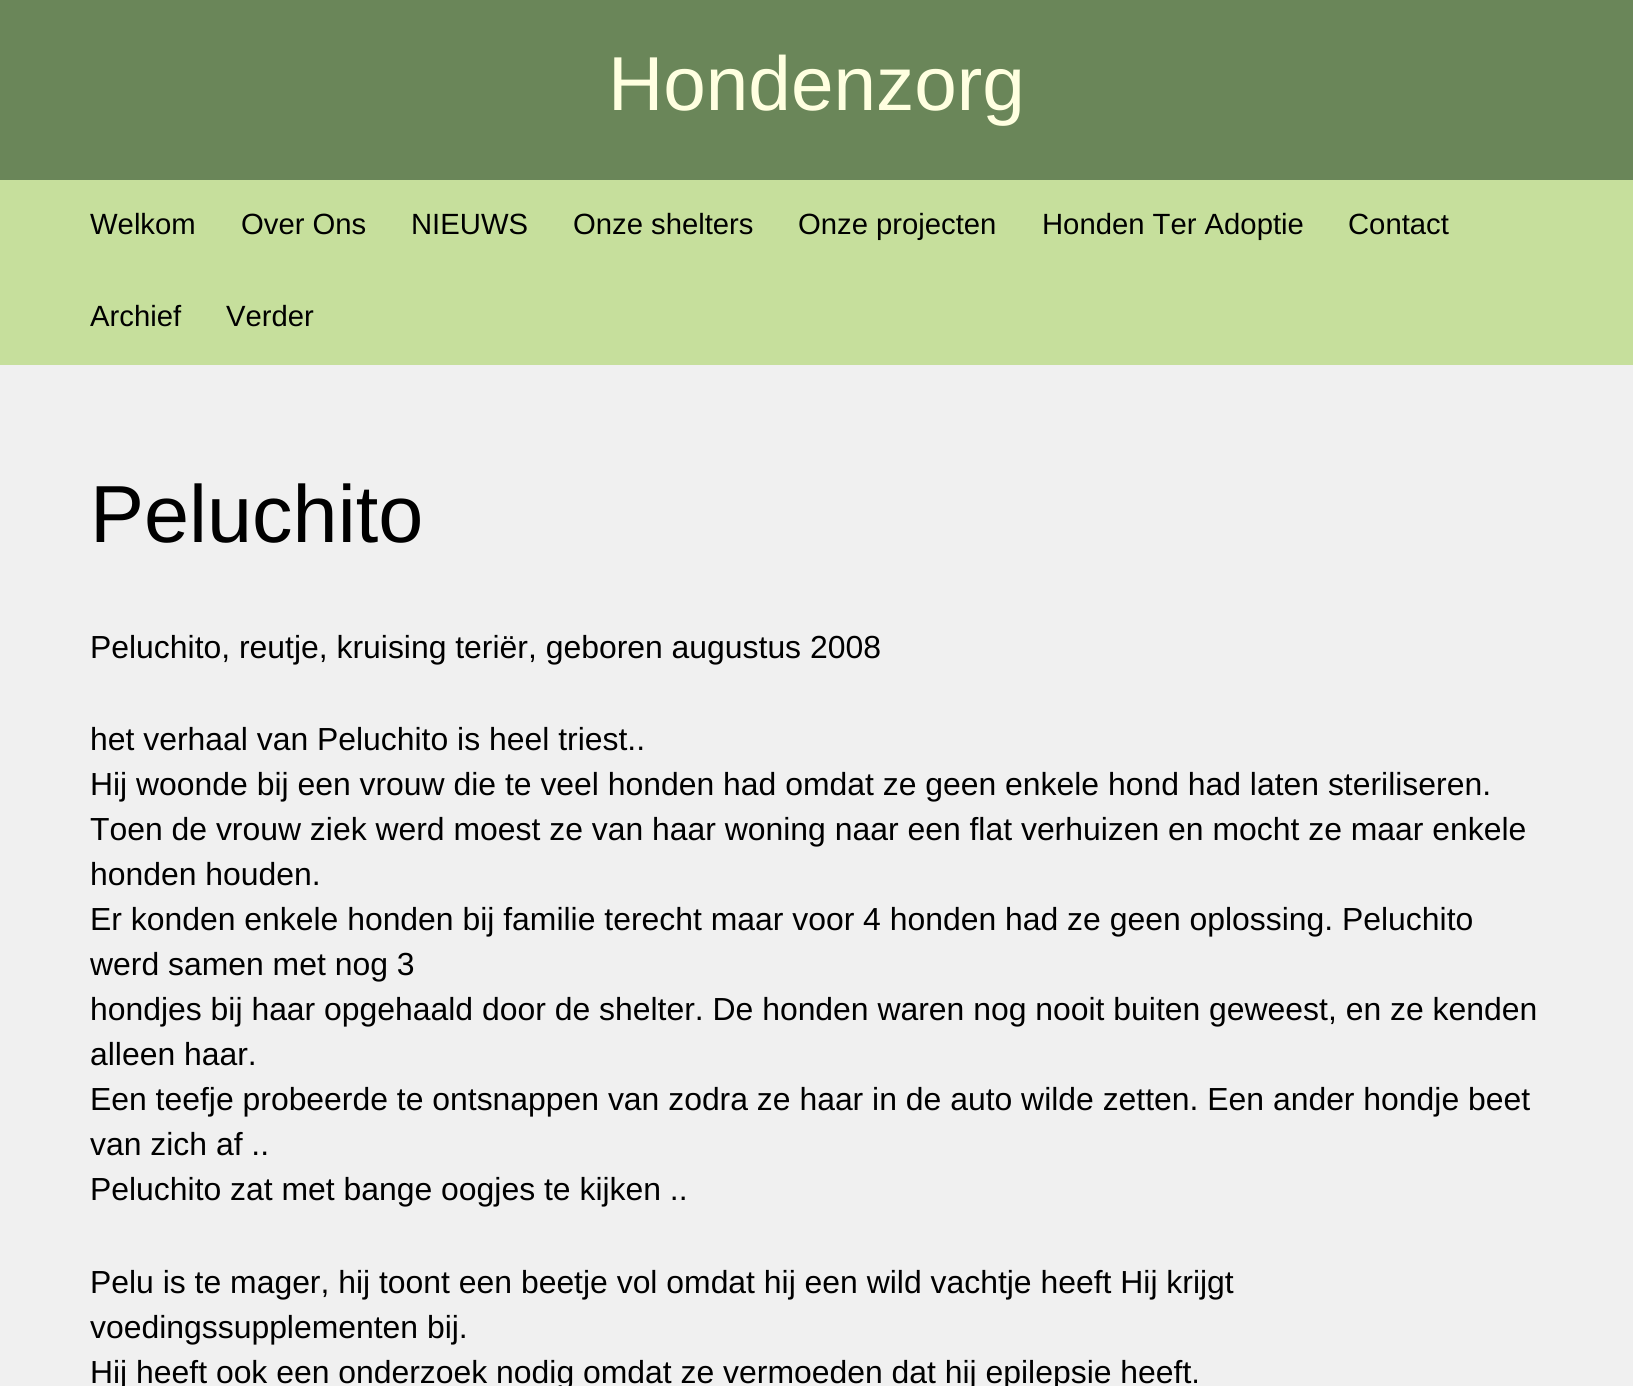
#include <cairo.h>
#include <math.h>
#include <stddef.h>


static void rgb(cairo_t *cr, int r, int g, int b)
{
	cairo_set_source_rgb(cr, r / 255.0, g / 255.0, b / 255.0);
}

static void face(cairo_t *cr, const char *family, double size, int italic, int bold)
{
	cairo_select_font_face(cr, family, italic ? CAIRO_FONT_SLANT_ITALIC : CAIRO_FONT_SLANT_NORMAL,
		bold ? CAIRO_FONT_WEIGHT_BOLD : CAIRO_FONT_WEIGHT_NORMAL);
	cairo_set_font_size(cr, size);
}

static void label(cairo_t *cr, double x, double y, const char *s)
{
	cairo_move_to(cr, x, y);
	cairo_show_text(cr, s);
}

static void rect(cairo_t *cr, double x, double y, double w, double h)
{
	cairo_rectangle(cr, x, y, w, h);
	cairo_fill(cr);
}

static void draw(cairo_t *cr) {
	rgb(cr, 198, 223, 156);
	cairo_paint(cr);
	rgb(cr, 106, 134, 89);
	rect(cr, 0, 0, 1633, 180);
	face(cr, "Liberation Sans", 76.5, 0, 0);
	rgb(cr, 255, 255, 224);
	label(cr, 608, 110, "Hondenzorg");
	face(cr, "Liberation Sans", 29.25, 0, 0);
	rgb(cr, 0, 0, 0);
	label(cr, 90, 234, "Welkom");
	label(cr, 241, 234, "Over Ons");
	label(cr, 411, 234, "NIEUWS");
	label(cr, 573, 234, "Onze shelters");
	label(cr, 798, 234, "Onze projecten");
	label(cr, 1042, 234, "Honden Ter Adoptie");
	label(cr, 1348, 234, "Contact");
	label(cr, 90, 326, "Archief");
	label(cr, 226, 326, "Verder");
	rgb(cr, 240, 240, 240);
	rect(cr, 0, 365, 1633, 1021);
	face(cr, "Liberation Sans", 81, 0, 0);
	rgb(cr, 0, 0, 0);
	label(cr, 90, 542, "Peluchito");
	face(cr, "Liberation Sans", 31.9, 0, 0);
	label(cr, 90, 658, "Peluchito, reutje, kruising teriër, geboren augustus 2008");
	label(cr, 90, 750, "het verhaal van Peluchito is heel triest..");
	label(cr, 90, 795, "Hij woonde bij een vrouw die te veel honden had omdat ze geen enkele hond had laten steriliseren.");
	label(cr, 90, 840, "Toen de vrouw ziek werd moest ze van haar woning naar een flat verhuizen en mocht ze maar enkele");
	label(cr, 90, 885, "honden houden.");
	label(cr, 90, 930, "Er konden enkele honden bij familie terecht maar voor 4 honden had ze geen oplossing. Peluchito");
	label(cr, 90, 975, "werd samen met nog 3");
	label(cr, 90, 1020, "hondjes bij haar opgehaald door de shelter. De honden waren nog nooit buiten geweest, en ze kenden");
	label(cr, 90, 1065, "alleen haar.");
	label(cr, 90, 1110, "Een teefje probeerde te ontsnappen van zodra ze haar in de auto wilde zetten. Een ander hondje beet");
	label(cr, 90, 1155, "van zich af ..");
	label(cr, 90, 1200, "Peluchito zat met bange oogjes te kijken ..");
	label(cr, 90, 1293, "Pelu is te mager, hij toont een beetje vol omdat hij een wild vachtje heeft Hij krijgt");
	label(cr, 90, 1338, "voedingssupplementen bij.");
	label(cr, 90, 1383, "Hij heeft ook een onderzoek nodig omdat ze vermoeden dat hij epilepsie heeft.");
}

int main(void) {
	cairo_surface_t *surface = cairo_image_surface_create(CAIRO_FORMAT_RGB24, 1633, 1386);
	cairo_t *cr = cairo_create(surface);
	cairo_font_options_t *options = cairo_font_options_create();
	cairo_font_options_set_hint_metrics(options, CAIRO_HINT_METRICS_OFF);
	cairo_font_options_set_hint_style(options, CAIRO_HINT_STYLE_NONE);
	cairo_set_font_options(cr, options);
	cairo_set_miter_limit(cr, 4);
	draw(cr);
	cairo_surface_write_to_png(surface, "render.png");
	cairo_font_options_destroy(options);
	cairo_destroy(cr);
	cairo_surface_destroy(surface);
	return 0;
}
